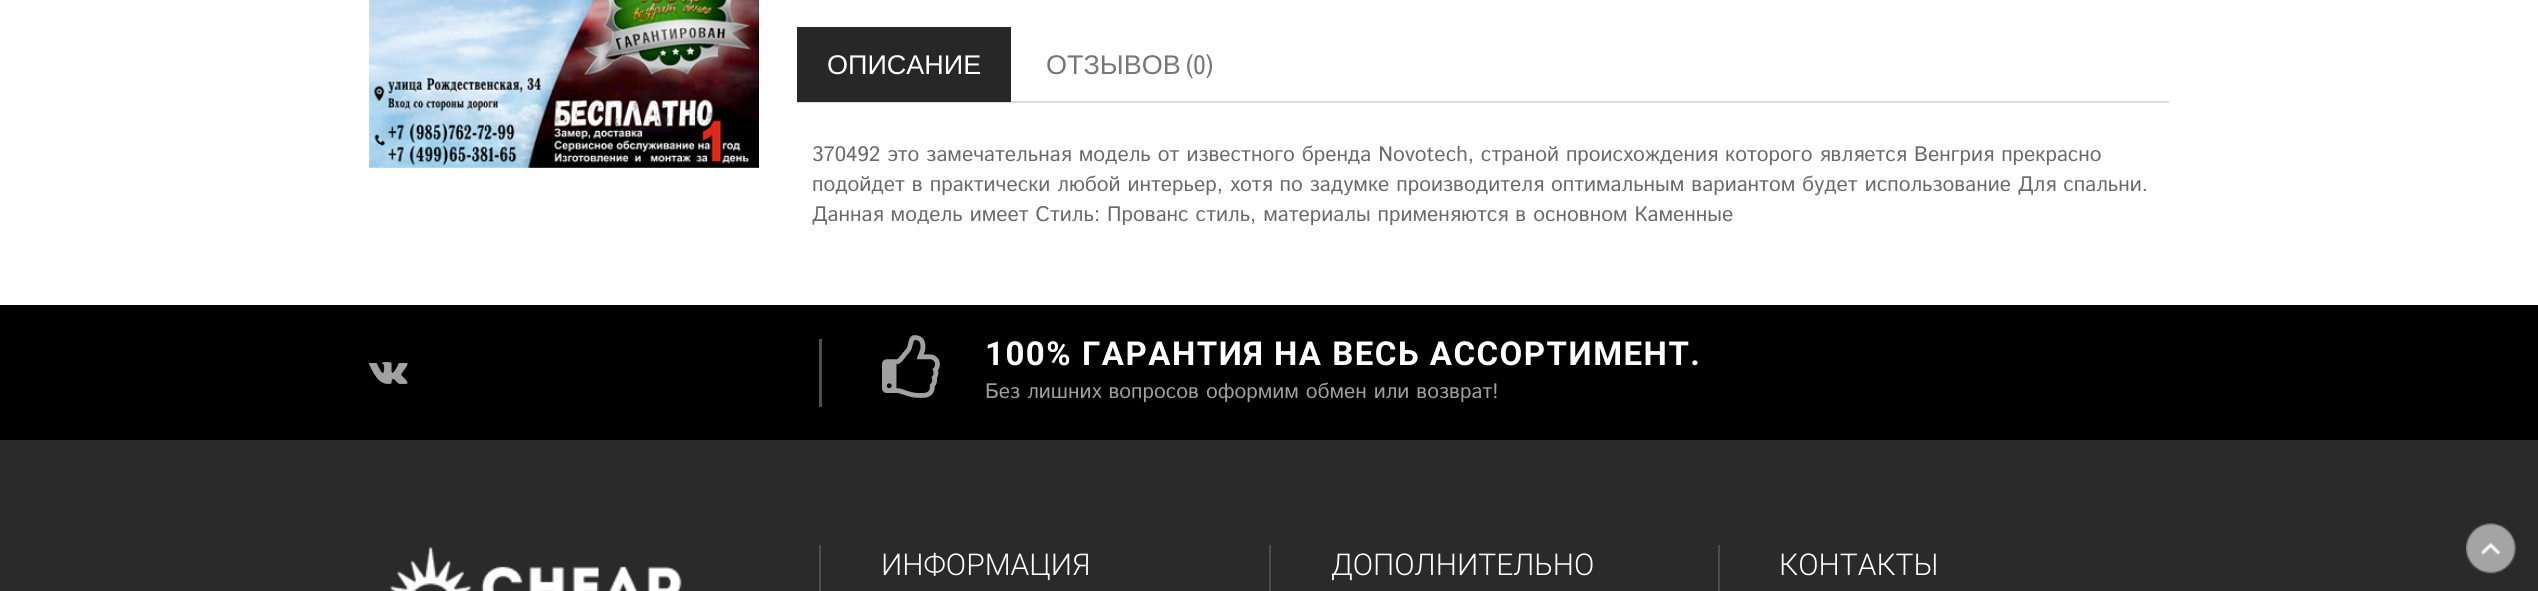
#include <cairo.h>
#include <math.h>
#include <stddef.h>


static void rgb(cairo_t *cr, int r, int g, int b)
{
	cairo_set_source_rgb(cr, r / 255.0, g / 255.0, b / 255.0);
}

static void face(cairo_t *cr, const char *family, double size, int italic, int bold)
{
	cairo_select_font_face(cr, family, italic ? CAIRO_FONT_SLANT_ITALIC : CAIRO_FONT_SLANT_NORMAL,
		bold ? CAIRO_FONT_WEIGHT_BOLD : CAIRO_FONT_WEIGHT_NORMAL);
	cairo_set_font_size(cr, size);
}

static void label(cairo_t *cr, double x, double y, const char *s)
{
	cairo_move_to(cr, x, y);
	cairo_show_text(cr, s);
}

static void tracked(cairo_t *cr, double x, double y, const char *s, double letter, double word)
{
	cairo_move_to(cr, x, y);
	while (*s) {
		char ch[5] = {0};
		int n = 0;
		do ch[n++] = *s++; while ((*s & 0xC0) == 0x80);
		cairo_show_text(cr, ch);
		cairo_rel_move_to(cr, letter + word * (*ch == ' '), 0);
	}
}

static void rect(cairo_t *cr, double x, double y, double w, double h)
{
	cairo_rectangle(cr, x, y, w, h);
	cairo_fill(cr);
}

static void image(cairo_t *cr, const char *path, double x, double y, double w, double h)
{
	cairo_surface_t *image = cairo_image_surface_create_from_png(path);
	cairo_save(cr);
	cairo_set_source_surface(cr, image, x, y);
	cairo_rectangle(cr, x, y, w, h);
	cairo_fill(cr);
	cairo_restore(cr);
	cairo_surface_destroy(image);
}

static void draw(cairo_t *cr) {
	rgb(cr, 255, 255, 255);
	cairo_paint(cr);
	image(cr, "image0.png", 369, 0, 390, 175);
	rgb(cr, 221, 221, 221);
	rect(cr, 797, 101, 1372, 2);
	rgb(cr, 39, 39, 39);
	rect(cr, 797, 27, 214, 75);
	face(cr, "Liberation Sans", 27, 0, 0);
	rgb(cr, 255, 255, 255);
	label(cr, 827, 74, "ОПИСАНИЕ");
	rgb(cr, 119, 119, 119);
	label(cr, 1046, 74, "ОТЗЫВОВ");
	face(cr, "Archivo Narrow", 27, 0, 0);
	label(cr, 1186, 74, "(0)");
	face(cr, "Istok Web", 21, 0, 0);
	rgb(cr, 105, 105, 105);
	label(cr, 812, 161, "370492 это замечательная модель от известного бренда Novotech, страной происхождения которого является Венгрия прекрасно");
	label(cr, 812, 191, "подойдет в практически любой интерьер, хотя по задумке производителя оптимальным вариантом будет использование Для спальни.");
	label(cr, 812, 221, "Данная модель имеет Стиль: Прованс стиль, материалы применяются в основном Каменные");
	rgb(cr, 0, 0, 0);
	rect(cr, 0, 305, 2538, 135);
	image(cr, "image1.png", 369, 362, 39, 22);
	rgb(cr, 77, 77, 77);
	rect(cr, 819, 339, 3, 68);
	image(cr, "image2.png", 882, 335, 58, 63);
	face(cr, "Roboto", 33, 0, 1);
	rgb(cr, 255, 255, 255);
	tracked(cr, 985, 365, "100% ГАРАНТИЯ НА ВЕСЬ АССОРТИМЕНТ.", 1.5, 0);
	face(cr, "Istok Web", 21, 0, 0);
	rgb(cr, 161, 160, 160);
	label(cr, 985, 398, "Без лишних вопросов оформим обмен или возврат!");
	rgb(cr, 42, 42, 42);
	rect(cr, 0, 440, 2538, 151);
	image(cr, "image3.png", 389, 547, 293, 44);
	rgb(cr, 77, 77, 77);
	rect(cr, 819, 545, 2, 46);
	face(cr, "Roboto Light", 30, 0, 0);
	rgb(cr, 255, 255, 255);
	label(cr, 881, 575, "ИНФОРМАЦИЯ");
	rgb(cr, 77, 77, 77);
	rect(cr, 1718, 545, 2, 46);
	rect(cr, 1269, 545, 2, 46);
	rgb(cr, 255, 255, 255);
	label(cr, 1331, 575, "ДОПОЛНИТЕЛЬНО");
	label(cr, 1779, 575, "КОНТАКТЫ");
	image(cr, "image4.png", 2466, 523, 50, 51);
}

int main(void) {
	cairo_surface_t *surface = cairo_image_surface_create(CAIRO_FORMAT_RGB24, 2538, 591);
	cairo_t *cr = cairo_create(surface);
	cairo_font_options_t *options = cairo_font_options_create();
	cairo_font_options_set_hint_metrics(options, CAIRO_HINT_METRICS_OFF);
	cairo_font_options_set_hint_style(options, CAIRO_HINT_STYLE_NONE);
	cairo_set_font_options(cr, options);
	cairo_set_miter_limit(cr, 4);
	draw(cr);
	cairo_surface_write_to_png(surface, "render.png");
	cairo_font_options_destroy(options);
	cairo_destroy(cr);
	cairo_surface_destroy(surface);
	return 0;
}
